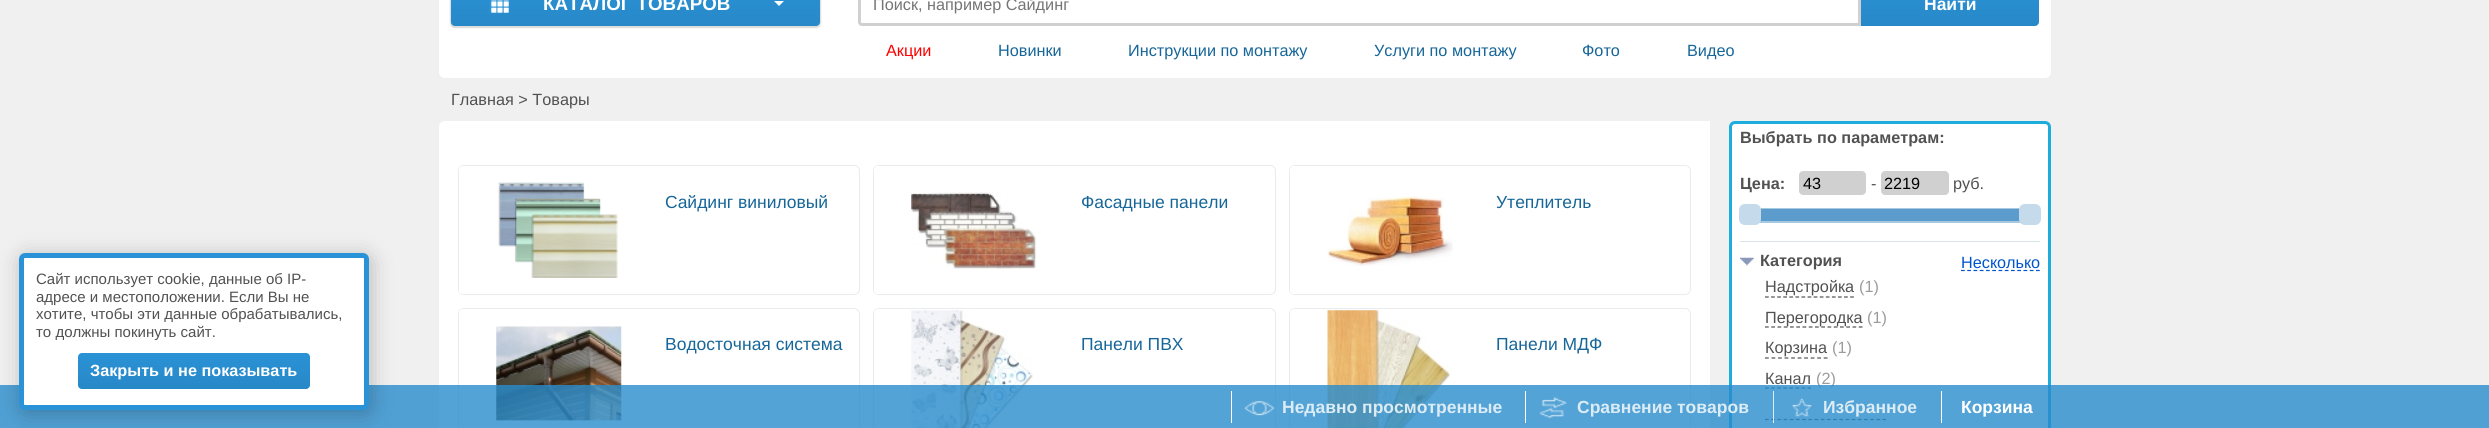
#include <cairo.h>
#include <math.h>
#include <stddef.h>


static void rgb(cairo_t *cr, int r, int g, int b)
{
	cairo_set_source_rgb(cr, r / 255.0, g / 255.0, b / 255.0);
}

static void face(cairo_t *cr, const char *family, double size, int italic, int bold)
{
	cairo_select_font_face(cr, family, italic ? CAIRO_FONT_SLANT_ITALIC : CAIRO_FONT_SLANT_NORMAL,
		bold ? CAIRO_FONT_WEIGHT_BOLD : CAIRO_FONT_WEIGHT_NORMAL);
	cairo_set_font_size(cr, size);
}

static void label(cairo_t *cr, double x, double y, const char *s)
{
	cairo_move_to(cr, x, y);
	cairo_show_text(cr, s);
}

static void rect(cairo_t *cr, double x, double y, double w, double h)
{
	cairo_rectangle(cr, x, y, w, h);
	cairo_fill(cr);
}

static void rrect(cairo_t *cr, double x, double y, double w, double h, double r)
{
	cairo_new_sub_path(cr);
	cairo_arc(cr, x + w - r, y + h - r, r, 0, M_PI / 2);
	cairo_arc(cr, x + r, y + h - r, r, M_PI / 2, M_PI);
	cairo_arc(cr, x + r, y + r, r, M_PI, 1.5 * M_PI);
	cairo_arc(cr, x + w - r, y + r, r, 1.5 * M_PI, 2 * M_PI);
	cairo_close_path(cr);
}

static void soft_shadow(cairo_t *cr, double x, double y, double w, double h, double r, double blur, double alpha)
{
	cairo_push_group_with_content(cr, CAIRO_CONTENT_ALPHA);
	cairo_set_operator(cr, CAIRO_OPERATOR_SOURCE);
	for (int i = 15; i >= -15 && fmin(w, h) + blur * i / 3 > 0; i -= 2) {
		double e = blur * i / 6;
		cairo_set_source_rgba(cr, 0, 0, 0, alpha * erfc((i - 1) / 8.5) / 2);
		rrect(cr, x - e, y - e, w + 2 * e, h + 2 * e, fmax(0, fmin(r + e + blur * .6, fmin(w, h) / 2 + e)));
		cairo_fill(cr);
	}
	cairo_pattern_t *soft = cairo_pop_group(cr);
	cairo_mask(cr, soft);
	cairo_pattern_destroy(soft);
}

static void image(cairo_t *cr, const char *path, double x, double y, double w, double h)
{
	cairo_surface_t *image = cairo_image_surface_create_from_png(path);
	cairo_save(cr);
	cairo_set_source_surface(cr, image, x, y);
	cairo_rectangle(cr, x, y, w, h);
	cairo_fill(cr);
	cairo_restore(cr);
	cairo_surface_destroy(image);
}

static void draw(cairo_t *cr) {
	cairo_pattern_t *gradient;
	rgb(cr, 240, 240, 240);
	cairo_paint(cr);
	rgb(cr, 255, 255, 255);
	cairo_new_path(cr);
	cairo_move_to(cr, 439, -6);
	cairo_line_to(cr, 2051, -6);
	cairo_line_to(cr, 2051, 72);
	cairo_curve_to(cr, 2051, 75.5, 2048.5, 78, 2045, 78);
	cairo_line_to(cr, 445, 78);
	cairo_curve_to(cr, 441.5, 78, 439, 75.5, 439, 72);
	cairo_close_path(cr);
	cairo_fill(cr);
	rgb(cr, 220, 220, 220);
	soft_shadow(cr, 450, -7, 371, 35, 5, 0.5, 1);
	gradient = cairo_pattern_create_linear(636, 26, 636, -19);
	cairo_pattern_add_color_stop_rgba(gradient, 0, 0.153, 0.533, 0.78, 1);
	cairo_pattern_add_color_stop_rgba(gradient, 1, 0.165, 0.573, 0.839, 1);
	cairo_set_source(cr, gradient);
	cairo_pattern_destroy(gradient);
	rrect(cr, 451, -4, 369, 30, 4);
	cairo_fill(cr);
	image(cr, "image0.png", 489, 0, 20, 13);
	face(cr, "Liberation Sans", 18.75, 0, 1);
	rgb(cr, 255, 255, 255);
	label(cr, 543, 10, "КАТАЛОГ ТОВАРОВ");
	cairo_new_path(cr);
	cairo_move_to(cr, 774, 1);
	cairo_line_to(cr, 784, 1);
	cairo_line_to(cr, 779, 6);
	cairo_close_path(cr);
	cairo_fill(cr);
	cairo_new_path(cr);
	cairo_move_to(cr, 862, -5.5);
	cairo_line_to(cr, 1859.5, -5.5);
	cairo_line_to(cr, 1859.5, 24.5);
	cairo_line_to(cr, 862, 24.5);
	cairo_curve_to(cr, 860.5, 24.5, 859.5, 23.5, 859.5, 22);
	cairo_line_to(cr, 859.5, -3);
	cairo_curve_to(cr, 859.5, -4.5, 860.5, -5.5, 862, -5.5);
	cairo_close_path(cr);
	rgb(cr, 208, 208, 208);
	cairo_set_line_width(cr, 3);
	cairo_stroke(cr);
	face(cr, "Liberation Sans", 16.25, 0, 0);
	rgb(cr, 117, 117, 117);
	label(cr, 873, 10, "Поиск, например Сайдинг");
	gradient = cairo_pattern_create_linear(1950, 26, 1950, -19);
	cairo_pattern_add_color_stop_rgba(gradient, 0, 0.153, 0.533, 0.78, 1);
	cairo_pattern_add_color_stop_rgba(gradient, 1, 0.165, 0.573, 0.839, 1);
	cairo_set_source(cr, gradient);
	cairo_pattern_destroy(gradient);
	cairo_new_path(cr);
	cairo_move_to(cr, 1861, -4);
	cairo_line_to(cr, 2035, -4);
	cairo_curve_to(cr, 2037, -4, 2039, -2, 2039, 0);
	cairo_line_to(cr, 2039, 22);
	cairo_curve_to(cr, 2039, 24, 2037, 26, 2035, 26);
	cairo_line_to(cr, 1861, 26);
	cairo_close_path(cr);
	cairo_fill(cr);
	face(cr, "Liberation Sans", 17.5, 0, 1);
	rgb(cr, 255, 255, 255);
	label(cr, 1924, 10, "Найти");
	face(cr, "Liberation Sans", 16.25, 0, 0);
	rgb(cr, 255, 0, 0);
	label(cr, 886, 56, "Акции");
	rgb(cr, 22, 102, 153);
	label(cr, 998, 56, "Новинки");
	label(cr, 1128, 56, "Инструкции по монтажу");
	label(cr, 1374, 56, "Услуги по монтажу");
	label(cr, 1582, 56, "Фото");
	label(cr, 1687, 56, "Видео");
	rgb(cr, 255, 255, 255);
	cairo_new_path(cr);
	cairo_move_to(cr, 445, 121);
	cairo_line_to(cr, 1710, 121);
	cairo_line_to(cr, 1710, 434);
	cairo_line_to(cr, 439, 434);
	cairo_line_to(cr, 439, 127);
	cairo_curve_to(cr, 439, 123.5, 441.5, 121, 445, 121);
	cairo_close_path(cr);
	cairo_fill(cr);
	rrect(cr, 458.5, 308.5, 401, 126, 5.5);
	rgb(cr, 233, 235, 237);
	cairo_set_line_width(cr, 1);
	cairo_stroke(cr);
	rgb(cr, 255, 255, 255);
	rrect(cr, 459.5, 309.5, 199, 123, 3.5);
	cairo_fill_preserve(cr);
	cairo_stroke(cr);
	image(cr, "image4.png", 496, 326, 126, 96);
	rrect(cr, 873.5, 308.5, 402, 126, 5.5);
	rgb(cr, 233, 235, 237);
	cairo_stroke(cr);
	rgb(cr, 255, 255, 255);
	rrect(cr, 874.5, 309.5, 199, 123, 3.5);
	cairo_fill_preserve(cr);
	cairo_stroke(cr);
	image(cr, "image5.png", 911, 310, 122, 118);
	rrect(cr, 1289.5, 308.5, 401, 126, 5.5);
	rgb(cr, 233, 235, 237);
	cairo_stroke(cr);
	rgb(cr, 255, 255, 255);
	rrect(cr, 1290.5, 309.5, 199, 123, 3.5);
	cairo_fill_preserve(cr);
	cairo_stroke(cr);
	image(cr, "image6.png", 1327, 310, 124, 118);
	rrect(cr, 1730.5, 122.5, 319, 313, 4.5);
	cairo_fill_preserve(cr);
	rgb(cr, 28, 173, 220);
	cairo_set_line_width(cr, 3);
	cairo_stroke(cr);
	cairo_new_path(cr);
	cairo_move_to(cr, 1765, 388);
	cairo_line_to(cr, 1811, 388);
	rgb(cr, 81, 81, 81);
	cairo_set_line_width(cr, 1.2);
	cairo_set_dash(cr, (double[]){3.75, 2.33}, 2, 0);
	cairo_stroke(cr);
	rgb(cr, 155, 155, 155);
	label(cr, 1816, 384, "(2)");
	cairo_new_path(cr);
	cairo_move_to(cr, 1765, 419.5);
	cairo_line_to(cr, 1886, 419.5);
	rgb(cr, 81, 81, 81);
	cairo_set_dash(cr, (double[]){3.75, 2.44}, 2, 0);
	cairo_stroke(cr);
	cairo_set_source_rgba(cr, 0.157, 0.549, 0.804, 0.8);
	rect(cr, 0, 385, 2489, 43);
	rgb(cr, 0, 0, 0);
	soft_shadow(cr, 21, 256, 350, 158, 6, 11, 0.23);
	rgb(cr, 255, 255, 255);
	rrect(cr, 21.5, 255.5, 345, 152, 3.5);
	cairo_fill_preserve(cr);
	rgb(cr, 42, 146, 214);
	cairo_set_line_width(cr, 5);
	cairo_set_dash(cr, NULL, 0, 0);
	cairo_stroke(cr);
	face(cr, "Liberation Sans", 15, 0, 0);
	rgb(cr, 81, 81, 81);
	label(cr, 36, 284, "Сайт использует cookie, данные об IP-");
	label(cr, 36, 302, "адресе и местоположении. Если Вы не");
	label(cr, 36, 319, "хотите, чтобы эти данные обрабатывались,");
	label(cr, 36, 337, "то должны покинуть сайт.");
	gradient = cairo_pattern_create_linear(194, 389, 194, 353);
	cairo_pattern_add_color_stop_rgba(gradient, 0, 0.153, 0.533, 0.78, 1);
	cairo_pattern_add_color_stop_rgba(gradient, 1, 0.165, 0.573, 0.839, 1);
	cairo_set_source(cr, gradient);
	cairo_pattern_destroy(gradient);
	rrect(cr, 78, 353, 232, 36, 4);
	cairo_fill(cr);
	face(cr, "Liberation Sans", 16.25, 0, 1);
	rgb(cr, 255, 255, 255);
	label(cr, 90, 376, "Закрыть и не показывать");
	face(cr, "Liberation Sans", 16.25, 0, 0);
	rgb(cr, 81, 81, 81);
	label(cr, 451, 105, "Главная > Товары");
	rrect(cr, 458.5, 165.5, 401, 129, 5.5);
	rgb(cr, 233, 235, 237);
	cairo_set_line_width(cr, 1);
	cairo_stroke(cr);
	rgb(cr, 255, 255, 255);
	rrect(cr, 459.5, 166.5, 199, 127, 3.5);
	cairo_fill_preserve(cr);
	cairo_stroke(cr);
	image(cr, "image1.png", 498, 182, 120, 96);
	face(cr, "Liberation Sans", 17.5, 0, 0);
	rgb(cr, 22, 102, 153);
	label(cr, 665, 208, "Сайдинг виниловый");
	rrect(cr, 873.5, 165.5, 402, 129, 5.5);
	rgb(cr, 233, 235, 237);
	cairo_stroke(cr);
	rgb(cr, 255, 255, 255);
	rrect(cr, 874.5, 166.5, 199, 127, 3.5);
	cairo_fill_preserve(cr);
	cairo_stroke(cr);
	image(cr, "image2.png", 911, 192, 126, 77);
	rgb(cr, 22, 102, 153);
	label(cr, 1081, 208, "Фасадные панели");
	rrect(cr, 1289.5, 165.5, 401, 129, 5.5);
	rgb(cr, 233, 235, 237);
	cairo_stroke(cr);
	rgb(cr, 255, 255, 255);
	rrect(cr, 1290.5, 166.5, 199, 127, 3.5);
	cairo_fill_preserve(cr);
	cairo_stroke(cr);
	image(cr, "image3.png", 1327, 196, 126, 70);
	rgb(cr, 22, 102, 153);
	label(cr, 1496, 208, "Утеплитель");
	label(cr, 665, 350, "Водосточная система");
	label(cr, 1081, 350, "Панели ПВХ");
	label(cr, 1496, 350, "Панели МДФ");
	face(cr, "Liberation Sans", 16.25, 0, 1);
	rgb(cr, 81, 81, 81);
	label(cr, 1740, 143, "Выбрать по параметрам:");
	rgb(cr, 215, 229, 230);
	rect(cr, 1740, 241, 300, 1);
	rgb(cr, 81, 81, 81);
	label(cr, 1740, 189, "Цена:");
	rgb(cr, 208, 208, 208);
	cairo_new_path(cr);
	cairo_move_to(cr, 1803, 171);
	cairo_line_to(cr, 1862, 171);
	cairo_curve_to(cr, 1864, 171, 1866, 173, 1866, 175);
	cairo_line_to(cr, 1866, 191);
	cairo_curve_to(cr, 1866, 193, 1864, 195, 1862, 195);
	cairo_line_to(cr, 1803, 195);
	cairo_curve_to(cr, 1801, 195, 1799, 193, 1799, 191);
	cairo_line_to(cr, 1799, 175);
	cairo_curve_to(cr, 1799, 173, 1801, 171, 1803, 171);
	cairo_close_path(cr);
	cairo_fill(cr);
	face(cr, "Liberation Sans", 16.25, 0, 0);
	rgb(cr, 0, 0, 0);
	label(cr, 1803, 189, "43");
	rgb(cr, 81, 81, 81);
	label(cr, 1871, 189, "-");
	rgb(cr, 208, 208, 208);
	cairo_new_path(cr);
	cairo_move_to(cr, 1885, 171);
	cairo_line_to(cr, 1945, 171);
	cairo_curve_to(cr, 1947, 171, 1949, 173, 1949, 175);
	cairo_line_to(cr, 1949, 191);
	cairo_curve_to(cr, 1949, 193, 1947, 195, 1945, 195);
	cairo_line_to(cr, 1885, 195);
	cairo_curve_to(cr, 1883, 195, 1881, 193, 1881, 191);
	cairo_line_to(cr, 1881, 175);
	cairo_curve_to(cr, 1881, 173, 1883, 171, 1885, 171);
	cairo_close_path(cr);
	cairo_fill(cr);
	rgb(cr, 0, 0, 0);
	label(cr, 1884, 189, "2219");
	rgb(cr, 81, 81, 81);
	label(cr, 1953, 189, "руб.");
	rgb(cr, 166, 201, 226);
	cairo_new_path(cr);
	cairo_move_to(cr, 1755, 208);
	cairo_line_to(cr, 2026, 208);
	cairo_curve_to(cr, 2031, 209, 2032, 215, 2031, 219);
	cairo_curve_to(cr, 2030, 222, 2027, 223, 2025, 223);
	cairo_line_to(cr, 1755, 223);
	cairo_curve_to(cr, 1747, 223, 1747, 208, 1755, 208);
	cairo_close_path(cr);
	cairo_fill(cr);
	rgb(cr, 92, 156, 204);
	rect(cr, 1760, 209, 260, 12);
	rgb(cr, 197, 219, 236);
	cairo_new_path(cr);
	cairo_move_to(cr, 1745, 204);
	cairo_line_to(cr, 1755, 204);
	cairo_curve_to(cr, 1758.5, 204, 1761, 206.5, 1761, 210);
	cairo_line_to(cr, 1761, 219);
	cairo_curve_to(cr, 1761, 222.5, 1758.5, 225, 1755, 225);
	cairo_line_to(cr, 1745, 225);
	cairo_curve_to(cr, 1741.5, 225, 1739, 222.5, 1739, 219);
	cairo_line_to(cr, 1739, 210);
	cairo_curve_to(cr, 1739, 206.5, 1741.5, 204, 1745, 204);
	cairo_close_path(cr);
	cairo_fill(cr);
	cairo_new_path(cr);
	cairo_move_to(cr, 2025, 204);
	cairo_line_to(cr, 2035, 204);
	cairo_curve_to(cr, 2038.5, 204, 2041, 206.5, 2041, 210);
	cairo_line_to(cr, 2041, 219);
	cairo_curve_to(cr, 2041, 222.5, 2038.5, 225, 2035, 225);
	cairo_line_to(cr, 2025, 225);
	cairo_curve_to(cr, 2021.5, 225, 2019, 222.5, 2019, 219);
	cairo_line_to(cr, 2019, 210);
	cairo_curve_to(cr, 2019, 206.5, 2021.5, 204, 2025, 204);
	cairo_close_path(cr);
	cairo_fill(cr);
	image(cr, "image7.png", 1740, 257, 14, 9);
	face(cr, "Liberation Sans", 16.25, 0, 1);
	rgb(cr, 81, 81, 81);
	label(cr, 1760, 266, "Категория");
	cairo_new_path(cr);
	cairo_move_to(cr, 1961, 270.5);
	cairo_line_to(cr, 2040, 270.5);
	rgb(cr, 0, 85, 204);
	cairo_set_line_width(cr, 1.2);
	cairo_set_dash(cr, (double[]){3.75, 2.5}, 2, 0);
	cairo_stroke(cr);
	face(cr, "Liberation Sans", 16.25, 0, 0);
	label(cr, 1961, 268, "Несколько");
	rgb(cr, 81, 81, 81);
	label(cr, 1765, 292, "Надстройка");
	cairo_new_path(cr);
	cairo_move_to(cr, 1765, 297);
	cairo_line_to(cr, 1854, 297);
	cairo_set_dash(cr, (double[]){3.75, 2.33}, 2, 0);
	cairo_stroke(cr);
	rgb(cr, 155, 155, 155);
	label(cr, 1859, 292, "(1)");
	cairo_new_path(cr);
	cairo_move_to(cr, 1765, 327);
	cairo_line_to(cr, 1862.5, 327);
	rgb(cr, 81, 81, 81);
	cairo_set_dash(cr, (double[]){3.75, 2.5}, 2, 0);
	cairo_stroke(cr);
	label(cr, 1765, 323, "Перегородка");
	rgb(cr, 155, 155, 155);
	label(cr, 1867, 323, "(1)");
	rgb(cr, 81, 81, 81);
	label(cr, 1765, 353, "Корзина");
	cairo_new_path(cr);
	cairo_move_to(cr, 1765, 358);
	cairo_line_to(cr, 1827.5, 358);
	cairo_set_dash(cr, (double[]){3.75, 2.78}, 2, 0);
	cairo_stroke(cr);
	rgb(cr, 155, 155, 155);
	label(cr, 1832, 353, "(1)");
	rgb(cr, 81, 81, 81);
	label(cr, 1765, 384, "Канал");
	rgb(cr, 255, 255, 255);
	rect(cr, 1231, 391, 1, 32);
	image(cr, "image8.png", 1244, 401, 31, 15);
	face(cr, "Liberation Sans", 17.5, 0, 1);
	rgb(cr, 220, 236, 245);
	label(cr, 1282, 413, "Недавно просмотренные");
	rgb(cr, 255, 255, 255);
	rect(cr, 1525, 391, 1, 32);
	image(cr, "image9.png", 1539, 397, 28, 21);
	rgb(cr, 220, 236, 245);
	label(cr, 1577, 413, "Сравнение товаров");
	cairo_set_source_rgba(cr, 1, 1, 1, 0.8);
	rect(cr, 1773, 391, 1, 32);
	image(cr, "image10.png", 1791, 398, 21, 19);
	rgb(cr, 220, 236, 245);
	label(cr, 1823, 413, "Избранное");
	rgb(cr, 255, 255, 255);
	rect(cr, 1941, 391, 1, 32);
	label(cr, 1961, 413, "Корзина");
}

int main(void) {
	cairo_surface_t *surface = cairo_image_surface_create(CAIRO_FORMAT_RGB24, 2489, 428);
	cairo_t *cr = cairo_create(surface);
	cairo_font_options_t *options = cairo_font_options_create();
	cairo_font_options_set_hint_metrics(options, CAIRO_HINT_METRICS_OFF);
	cairo_font_options_set_hint_style(options, CAIRO_HINT_STYLE_NONE);
	cairo_set_font_options(cr, options);
	cairo_set_miter_limit(cr, 4);
	draw(cr);
	cairo_surface_write_to_png(surface, "render.png");
	cairo_font_options_destroy(options);
	cairo_destroy(cr);
	cairo_surface_destroy(surface);
	return 0;
}
